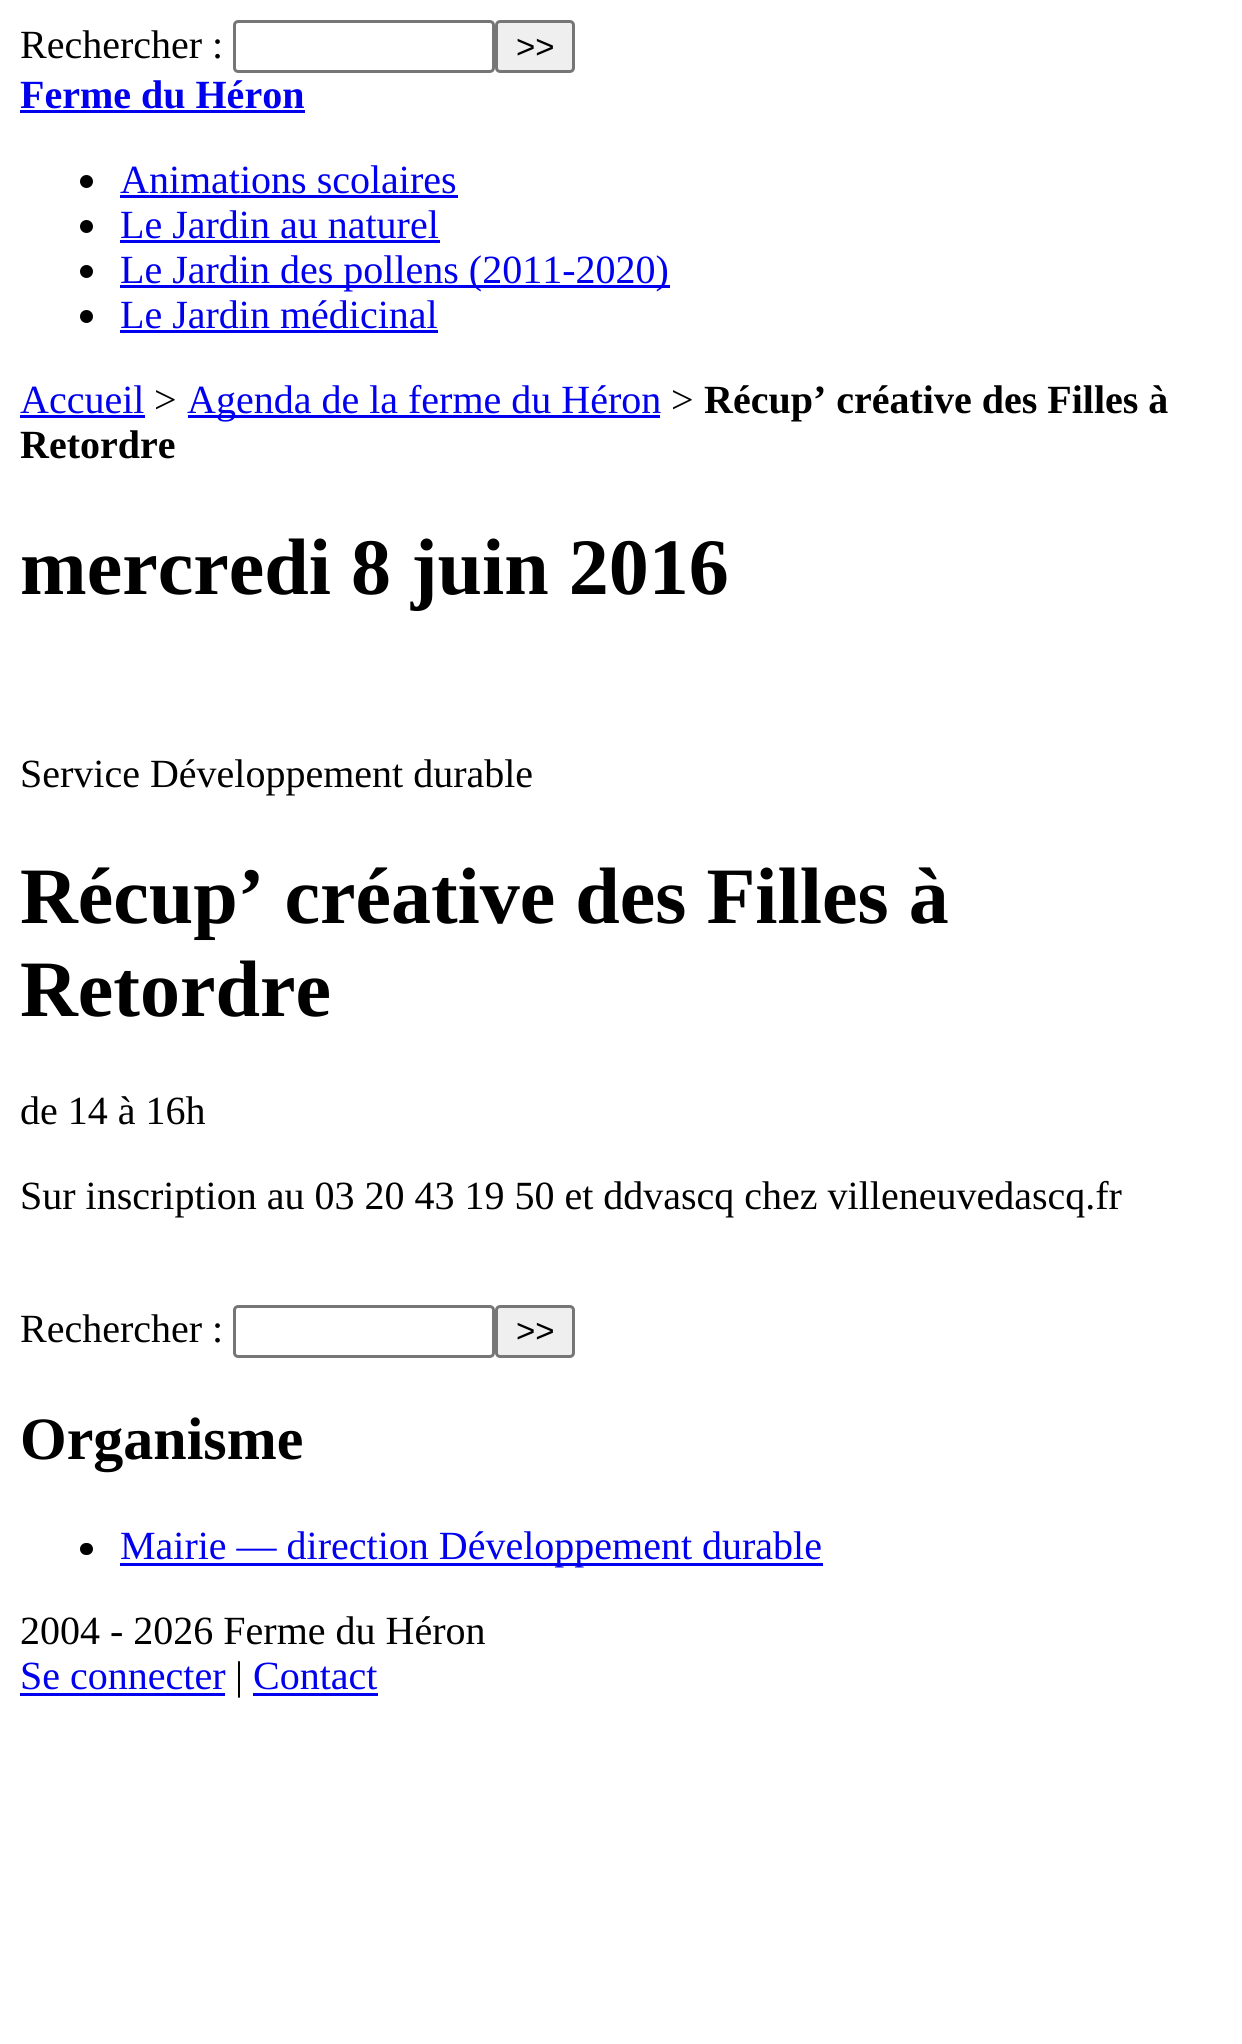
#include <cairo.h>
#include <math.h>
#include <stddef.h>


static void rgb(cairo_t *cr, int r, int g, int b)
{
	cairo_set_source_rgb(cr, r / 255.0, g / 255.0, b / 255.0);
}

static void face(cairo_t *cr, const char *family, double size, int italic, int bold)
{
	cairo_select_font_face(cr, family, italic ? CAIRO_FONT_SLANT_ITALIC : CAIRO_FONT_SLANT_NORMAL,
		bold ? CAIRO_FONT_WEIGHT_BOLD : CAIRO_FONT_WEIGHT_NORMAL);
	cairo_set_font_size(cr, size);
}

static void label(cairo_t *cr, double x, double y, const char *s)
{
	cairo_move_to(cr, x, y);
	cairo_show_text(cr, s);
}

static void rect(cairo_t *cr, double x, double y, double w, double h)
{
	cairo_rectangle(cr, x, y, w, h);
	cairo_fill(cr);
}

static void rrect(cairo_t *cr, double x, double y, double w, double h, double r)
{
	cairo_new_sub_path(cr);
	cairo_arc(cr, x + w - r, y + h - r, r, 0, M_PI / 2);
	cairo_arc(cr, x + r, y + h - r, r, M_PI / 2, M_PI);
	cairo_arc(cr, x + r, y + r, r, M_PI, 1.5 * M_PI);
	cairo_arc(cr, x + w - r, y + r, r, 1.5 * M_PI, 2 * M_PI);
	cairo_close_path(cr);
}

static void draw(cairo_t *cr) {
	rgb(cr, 255, 255, 255);
	cairo_paint(cr);
	face(cr, "Liberation Serif", 40, 0, 0);
	rgb(cr, 0, 0, 0);
	label(cr, 20, 58, "Rechercher :");
	rrect(cr, 234.5, 21.5, 259, 50, 3.5);
	rgb(cr, 118, 118, 118);
	cairo_set_line_width(cr, 3);
	cairo_stroke(cr);
	rgb(cr, 239, 239, 239);
	rrect(cr, 496.5, 21.5, 77, 50, 3.5);
	cairo_fill_preserve(cr);
	rgb(cr, 118, 118, 118);
	cairo_stroke(cr);
	face(cr, "Liberation Sans", 33, 0, 0);
	rgb(cr, 0, 0, 0);
	label(cr, 516, 58, ">>");
	face(cr, "Liberation Serif", 40, 0, 1);
	rgb(cr, 0, 0, 238);
	label(cr, 20, 108, "Ferme du Héron");
	rect(cr, 20, 110, 285, 3);
	rgb(cr, 0, 0, 0);
	cairo_new_path(cr);
	cairo_arc(cr, 86.5, 181.5, 6.5, 0, 2 * M_PI);
	cairo_fill(cr);
	face(cr, "Liberation Serif", 40, 0, 0);
	rgb(cr, 0, 0, 238);
	label(cr, 120, 193, "Animations scolaires");
	rect(cr, 120, 195, 338, 3);
	rgb(cr, 0, 0, 0);
	cairo_new_path(cr);
	cairo_arc(cr, 86.5, 226.5, 6.5, 0, 2 * M_PI);
	cairo_fill(cr);
	rgb(cr, 0, 0, 238);
	label(cr, 120, 238, "Le Jardin au naturel");
	rect(cr, 120, 240, 320, 3);
	rgb(cr, 0, 0, 0);
	cairo_new_path(cr);
	cairo_arc(cr, 86.5, 271.5, 6.5, 0, 2 * M_PI);
	cairo_fill(cr);
	rgb(cr, 0, 0, 238);
	rect(cr, 120, 285, 550, 3);
	label(cr, 120, 283, "Le Jardin des pollens (2011-2020)");
	rgb(cr, 0, 0, 0);
	cairo_new_path(cr);
	cairo_arc(cr, 86.5, 316.5, 6.5, 0, 2 * M_PI);
	cairo_fill(cr);
	rgb(cr, 0, 0, 238);
	label(cr, 120, 328, "Le Jardin médicinal");
	rect(cr, 120, 330, 318, 3);
	label(cr, 20, 413, "Accueil");
	rect(cr, 20, 415, 125, 3);
	rgb(cr, 0, 0, 0);
	label(cr, 154, 413, ">");
	rgb(cr, 0, 0, 238);
	rect(cr, 188, 415, 472, 3);
	label(cr, 187, 413, "Agenda de la ferme du Héron");
	rgb(cr, 0, 0, 0);
	label(cr, 671, 413, ">");
	face(cr, "Liberation Serif", 40, 0, 1);
	label(cr, 704, 413, "Récup’ créative des Filles à");
	label(cr, 20, 458, "Retordre");
	face(cr, "Liberation Serif", 80, 0, 1);
	label(cr, 20, 594, "mercredi 8 juin 2016");
	face(cr, "Liberation Serif", 40, 0, 0);
	label(cr, 20, 787, "Service Développement durable");
	face(cr, "Liberation Serif", 80, 0, 1);
	label(cr, 20, 923, "Récup’ créative des Filles à");
	label(cr, 20, 1016, "Retordre");
	face(cr, "Liberation Serif", 40, 0, 0);
	label(cr, 20, 1124, "de 14 à 16h");
	label(cr, 20, 1209, "Sur inscription au 03 20 43 19 50 et ddvascq chez villeneuvedascq.fr");
	label(cr, 20, 1342, "Rechercher :");
	rrect(cr, 234.5, 1306.5, 259, 50, 3.5);
	rgb(cr, 118, 118, 118);
	cairo_stroke(cr);
	rgb(cr, 239, 239, 239);
	rrect(cr, 496.5, 1306.5, 77, 50, 3.5);
	cairo_fill_preserve(cr);
	rgb(cr, 118, 118, 118);
	cairo_stroke(cr);
	face(cr, "Liberation Sans", 33, 0, 0);
	rgb(cr, 0, 0, 0);
	label(cr, 516, 1342, ">>");
	face(cr, "Liberation Serif", 60, 0, 1);
	label(cr, 20, 1459, "Organisme");
	rrect(cr, 80, 1543, 13, 12, 6);
	cairo_fill(cr);
	rgb(cr, 0, 0, 238);
	rect(cr, 120, 1563, 703, 3);
	face(cr, "Liberation Serif", 40, 0, 0);
	label(cr, 120, 1559, "Mairie — direction Développement durable");
	rgb(cr, 0, 0, 0);
	label(cr, 20, 1644, "2004 - 2026 Ferme du Héron");
	rgb(cr, 0, 0, 238);
	label(cr, 20, 1689, "Se connecter");
	rect(cr, 20, 1693, 205, 3);
	rgb(cr, 0, 0, 0);
	label(cr, 235, 1689, "|");
	rgb(cr, 0, 0, 238);
	label(cr, 253, 1689, "Contact");
	rect(cr, 253, 1693, 125, 3);
}

int main(void) {
	cairo_surface_t *surface = cairo_image_surface_create(CAIRO_FORMAT_RGB24, 1242, 2044);
	cairo_t *cr = cairo_create(surface);
	cairo_font_options_t *options = cairo_font_options_create();
	cairo_font_options_set_hint_metrics(options, CAIRO_HINT_METRICS_OFF);
	cairo_font_options_set_hint_style(options, CAIRO_HINT_STYLE_NONE);
	cairo_set_font_options(cr, options);
	cairo_set_miter_limit(cr, 4);
	draw(cr);
	cairo_surface_write_to_png(surface, "render.png");
	cairo_font_options_destroy(options);
	cairo_destroy(cr);
	cairo_surface_destroy(surface);
	return 0;
}
